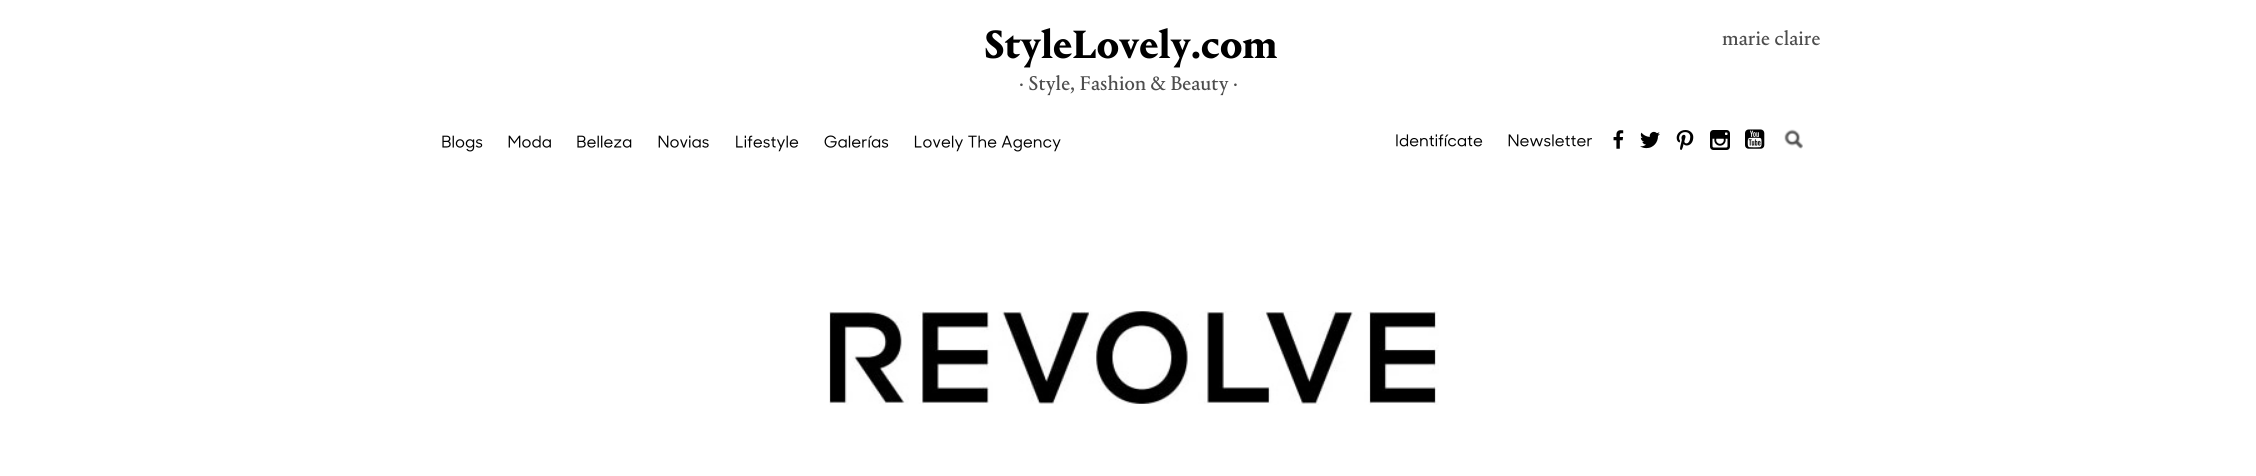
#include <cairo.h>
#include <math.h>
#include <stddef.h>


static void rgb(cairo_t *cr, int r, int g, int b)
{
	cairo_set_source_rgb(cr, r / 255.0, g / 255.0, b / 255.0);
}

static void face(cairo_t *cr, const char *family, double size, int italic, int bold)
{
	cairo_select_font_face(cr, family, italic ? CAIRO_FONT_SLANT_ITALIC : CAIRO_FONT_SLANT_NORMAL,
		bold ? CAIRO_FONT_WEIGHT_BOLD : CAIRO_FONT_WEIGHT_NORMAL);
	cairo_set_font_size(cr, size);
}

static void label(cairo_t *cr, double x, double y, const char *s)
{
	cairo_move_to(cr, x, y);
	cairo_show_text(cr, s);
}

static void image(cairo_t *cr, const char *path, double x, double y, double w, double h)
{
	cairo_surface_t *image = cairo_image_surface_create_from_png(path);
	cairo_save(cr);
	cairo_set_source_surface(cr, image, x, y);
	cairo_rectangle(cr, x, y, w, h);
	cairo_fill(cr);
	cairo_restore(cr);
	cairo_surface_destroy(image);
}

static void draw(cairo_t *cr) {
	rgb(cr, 255, 255, 255);
	cairo_paint(cr);
	face(cr, "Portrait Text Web", 41.25, 0, 1);
	rgb(cr, 0, 0, 0);
	label(cr, 984, 58, "StyleLovely.com");
	face(cr, "Portrait Text Web Medium", 20.75, 0, 0);
	rgb(cr, 77, 77, 77);
	label(cr, 1019, 90, "· Style, Fashion & Beauty ·");
	label(cr, 1722, 45, "marie claire");
	image(cr, "image0.png", 442, 135, 41, 17);
	image(cr, "image1.png", 508, 135, 43, 13);
	image(cr, "image2.png", 577, 135, 55, 13);
	image(cr, "image3.png", 658, 135, 51, 13);
	image(cr, "image4.png", 736, 135, 63, 17);
	image(cr, "image5.png", 824, 135, 65, 13);
	image(cr, "image6.png", 914, 135, 147, 17);
	image(cr, "image7.png", 1396, 134, 87, 13);
	image(cr, "image8.png", 1508, 134, 84, 13);
	image(cr, "image9.png", 1613, 130, 11, 19);
	image(cr, "image10.png", 1640, 131, 20, 18);
	image(cr, "image11.png", 1676, 130, 18, 20);
	image(cr, "image12.png", 1710, 130, 20, 20);
	image(cr, "image13.png", 1745, 129, 20, 20);
	image(cr, "image14.png", 1784, 129, 19, 20);
	image(cr, "image15.png", 829, 311, 610, 94);
}

int main(void) {
	cairo_surface_t *surface = cairo_image_surface_create(CAIRO_FORMAT_RGB24, 2256, 476);
	cairo_t *cr = cairo_create(surface);
	cairo_font_options_t *options = cairo_font_options_create();
	cairo_font_options_set_hint_metrics(options, CAIRO_HINT_METRICS_OFF);
	cairo_font_options_set_hint_style(options, CAIRO_HINT_STYLE_NONE);
	cairo_set_font_options(cr, options);
	cairo_set_miter_limit(cr, 4);
	draw(cr);
	cairo_surface_write_to_png(surface, "render.png");
	cairo_font_options_destroy(options);
	cairo_destroy(cr);
	cairo_surface_destroy(surface);
	return 0;
}
